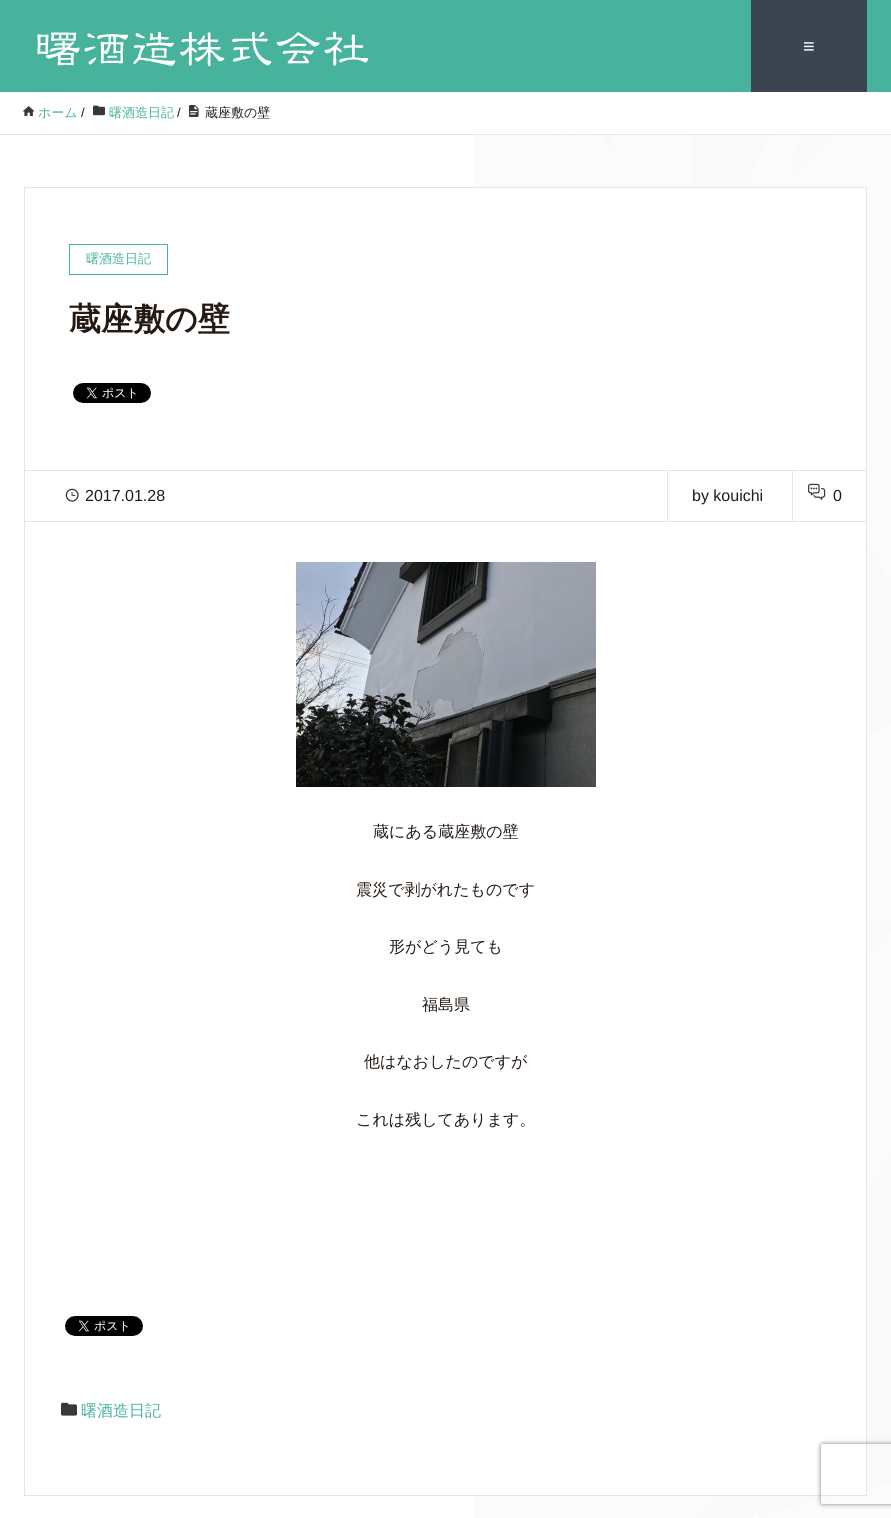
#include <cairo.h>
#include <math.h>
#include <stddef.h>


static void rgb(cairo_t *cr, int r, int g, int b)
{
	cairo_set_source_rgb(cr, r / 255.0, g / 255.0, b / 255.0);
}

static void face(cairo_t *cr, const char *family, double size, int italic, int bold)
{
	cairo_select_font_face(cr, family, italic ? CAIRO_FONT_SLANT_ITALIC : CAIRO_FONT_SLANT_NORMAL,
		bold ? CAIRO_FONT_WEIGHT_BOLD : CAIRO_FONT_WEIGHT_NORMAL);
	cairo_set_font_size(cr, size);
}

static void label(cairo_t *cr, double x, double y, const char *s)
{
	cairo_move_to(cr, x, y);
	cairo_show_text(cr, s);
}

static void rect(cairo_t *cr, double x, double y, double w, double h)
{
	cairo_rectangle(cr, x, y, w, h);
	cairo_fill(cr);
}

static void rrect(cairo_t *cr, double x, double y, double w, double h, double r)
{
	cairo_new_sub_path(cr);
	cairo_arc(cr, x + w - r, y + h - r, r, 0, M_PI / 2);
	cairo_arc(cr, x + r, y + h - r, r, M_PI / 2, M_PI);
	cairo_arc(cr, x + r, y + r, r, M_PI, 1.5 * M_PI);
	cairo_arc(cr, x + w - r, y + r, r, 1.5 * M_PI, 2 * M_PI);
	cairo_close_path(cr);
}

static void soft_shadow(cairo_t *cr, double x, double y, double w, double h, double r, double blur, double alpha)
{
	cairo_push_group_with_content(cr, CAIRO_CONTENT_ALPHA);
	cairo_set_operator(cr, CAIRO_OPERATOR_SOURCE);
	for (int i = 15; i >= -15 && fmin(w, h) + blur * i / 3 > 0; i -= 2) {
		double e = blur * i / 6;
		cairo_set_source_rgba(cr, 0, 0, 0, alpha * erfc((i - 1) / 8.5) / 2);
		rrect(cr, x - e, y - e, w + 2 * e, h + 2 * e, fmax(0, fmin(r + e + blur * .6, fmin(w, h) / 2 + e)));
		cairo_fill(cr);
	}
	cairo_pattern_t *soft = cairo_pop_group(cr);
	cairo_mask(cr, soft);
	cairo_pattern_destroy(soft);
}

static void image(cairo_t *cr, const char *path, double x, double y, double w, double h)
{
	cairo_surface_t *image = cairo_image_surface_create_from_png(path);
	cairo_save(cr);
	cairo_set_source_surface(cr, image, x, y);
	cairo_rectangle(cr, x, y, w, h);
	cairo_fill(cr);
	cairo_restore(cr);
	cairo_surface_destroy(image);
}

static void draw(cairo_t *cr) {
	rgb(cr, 255, 255, 255);
	cairo_paint(cr);
	image(cr, "image0.png", 475, 135, 416, 1383);
	rgb(cr, 71, 179, 157);
	rect(cr, 0, 0, 891, 92);
	image(cr, "image1.png", 37, 31, 331, 36);
	rgb(cr, 59, 69, 82);
	rect(cr, 751, 0, 116, 92);
	face(cr, "Liberation Sans", 20, 0, 0);
	rgb(cr, 255, 255, 255);
	label(cr, 803, 53, "≡");
	rgb(cr, 229, 229, 229);
	rect(cr, 0, 134, 891, 1);
	image(cr, "image2.png", 22, 106, 13, 10);
	face(cr, "WenQuanYi Zen Hei Medium", 13, 0, 0);
	rgb(cr, 71, 179, 157);
	label(cr, 38, 117, "ホーム");
	face(cr, "Liberation Sans", 13, 0, 0);
	rgb(cr, 36, 25, 19);
	label(cr, 81, 117, "/");
	image(cr, "image3.png", 93, 105, 12, 11);
	face(cr, "WenQuanYi Zen Hei Medium", 13, 0, 0);
	rgb(cr, 71, 179, 157);
	label(cr, 109, 117, "曙酒造日記");
	face(cr, "Liberation Sans", 13, 0, 0);
	rgb(cr, 36, 25, 19);
	label(cr, 177, 117, "/");
	image(cr, "image4.png", 189, 105, 10, 12);
	face(cr, "WenQuanYi Zen Hei Medium", 13, 0, 0);
	label(cr, 205, 117, "蔵座敷の壁");
	rgb(cr, 255, 255, 255);
	rect(cr, 475, 188, 391, 1307);
	cairo_rectangle(cr, 24.5, 187.5, 842, 1308);
	rgb(cr, 229, 229, 229);
	cairo_set_line_width(cr, 1);
	cairo_stroke(cr);
	rect(cr, 25, 470, 841, 1);
	cairo_rectangle(cr, 69.5, 244.5, 98, 30);
	rgb(cr, 71, 179, 157);
	cairo_stroke(cr);
	label(cr, 86, 263, "曙酒造日記");
	face(cr, "WenQuanYi Zen Hei", 32, 0, 1);
	rgb(cr, 36, 25, 19);
	label(cr, 69, 330, "蔵座敷の壁");
	image(cr, "image5.png", 73, 383, 78, 20);
	rgb(cr, 229, 229, 229);
	rect(cr, 25, 521, 841, 1);
	image(cr, "image6.png", 65, 488, 14, 14);
	face(cr, "Liberation Sans", 16, 0, 0);
	rgb(cr, 36, 25, 19);
	label(cr, 85, 501, "2017.01.28");
	rgb(cr, 229, 229, 229);
	rect(cr, 667, 471, 1, 50);
	rgb(cr, 36, 25, 19);
	label(cr, 692, 501, "by kouichi");
	rgb(cr, 229, 229, 229);
	rect(cr, 792, 471, 1, 50);
	image(cr, "image7.png", 808, 483, 18, 17);
	rgb(cr, 36, 25, 19);
	label(cr, 833, 501, "0");
	image(cr, "image8.png", 296, 562, 300, 225);
	face(cr, "WenQuanYi Zen Hei Medium", 16, 0, 0);
	label(cr, 373, 837, "蔵にある蔵座敷の壁");
	label(cr, 356, 895, "震災で剥がれたものです");
	label(cr, 389, 952, "形がどう見ても");
	label(cr, 422, 1010, "福島県");
	label(cr, 364, 1067, "他はなおしたのですが");
	label(cr, 356, 1125, "これは残してあります。");
	image(cr, "image9.png", 65, 1316, 78, 20);
	image(cr, "image10.png", 61, 1402, 16, 14);
	rgb(cr, 71, 179, 157);
	label(cr, 81, 1416, "曙酒造日記");
	cairo_save(cr);
	cairo_set_fill_rule(cr, CAIRO_FILL_RULE_EVEN_ODD);
	cairo_new_path(cr);
	cairo_move_to(cr, 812, 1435);
	cairo_line_to(cr, 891, 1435);
	cairo_line_to(cr, 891, 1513);
	cairo_line_to(cr, 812, 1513);
	cairo_close_path(cr);
	cairo_move_to(cr, 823, 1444);
	cairo_line_to(cr, 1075, 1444);
	cairo_curve_to(cr, 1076, 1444, 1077, 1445, 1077, 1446);
	cairo_line_to(cr, 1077, 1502);
	cairo_curve_to(cr, 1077, 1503, 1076, 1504, 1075, 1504);
	cairo_line_to(cr, 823, 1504);
	cairo_curve_to(cr, 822, 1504, 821, 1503, 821, 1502);
	cairo_line_to(cr, 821, 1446);
	cairo_curve_to(cr, 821, 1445, 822, 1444, 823, 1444);
	cairo_close_path(cr);
	cairo_clip(cr);
	rgb(cr, 128, 128, 128);
	soft_shadow(cr, 821, 1444, 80, 60, 2, 2.5, 1);
	cairo_restore(cr);
}

int main(void) {
	cairo_surface_t *surface = cairo_image_surface_create(CAIRO_FORMAT_RGB24, 891, 1518);
	cairo_t *cr = cairo_create(surface);
	cairo_font_options_t *options = cairo_font_options_create();
	cairo_font_options_set_hint_metrics(options, CAIRO_HINT_METRICS_OFF);
	cairo_font_options_set_hint_style(options, CAIRO_HINT_STYLE_NONE);
	cairo_set_font_options(cr, options);
	cairo_set_miter_limit(cr, 4);
	draw(cr);
	cairo_surface_write_to_png(surface, "render.png");
	cairo_font_options_destroy(options);
	cairo_destroy(cr);
	cairo_surface_destroy(surface);
	return 0;
}
